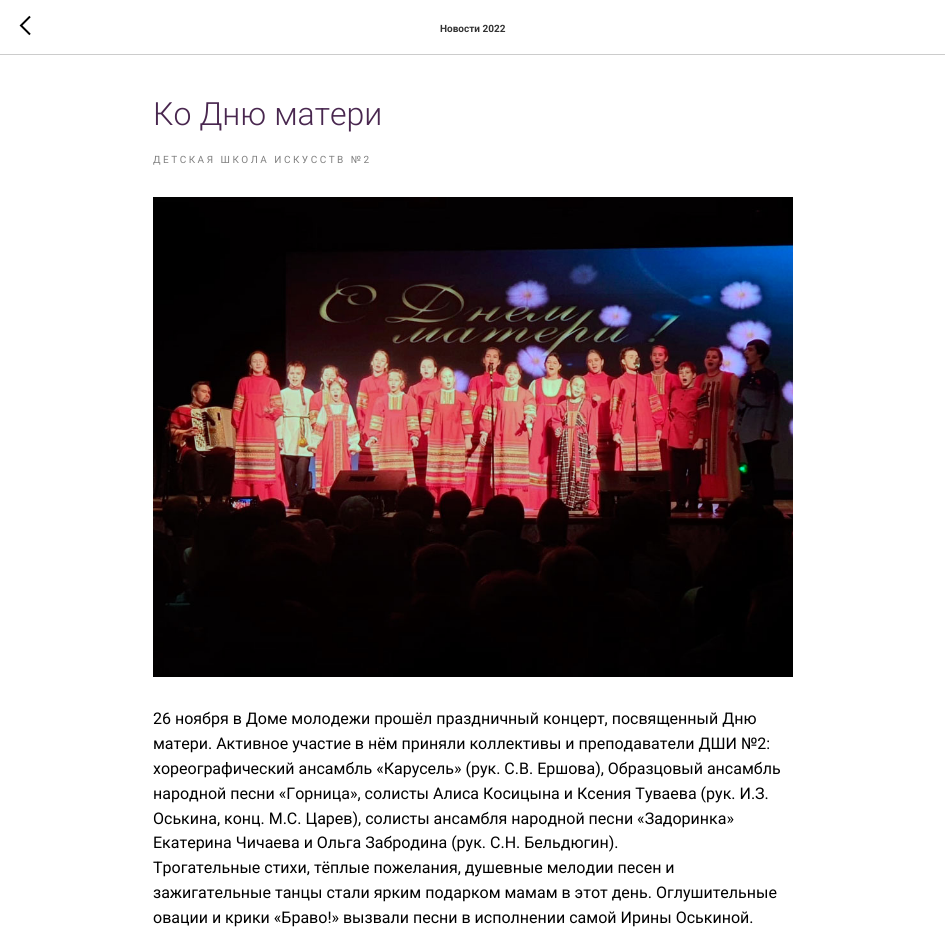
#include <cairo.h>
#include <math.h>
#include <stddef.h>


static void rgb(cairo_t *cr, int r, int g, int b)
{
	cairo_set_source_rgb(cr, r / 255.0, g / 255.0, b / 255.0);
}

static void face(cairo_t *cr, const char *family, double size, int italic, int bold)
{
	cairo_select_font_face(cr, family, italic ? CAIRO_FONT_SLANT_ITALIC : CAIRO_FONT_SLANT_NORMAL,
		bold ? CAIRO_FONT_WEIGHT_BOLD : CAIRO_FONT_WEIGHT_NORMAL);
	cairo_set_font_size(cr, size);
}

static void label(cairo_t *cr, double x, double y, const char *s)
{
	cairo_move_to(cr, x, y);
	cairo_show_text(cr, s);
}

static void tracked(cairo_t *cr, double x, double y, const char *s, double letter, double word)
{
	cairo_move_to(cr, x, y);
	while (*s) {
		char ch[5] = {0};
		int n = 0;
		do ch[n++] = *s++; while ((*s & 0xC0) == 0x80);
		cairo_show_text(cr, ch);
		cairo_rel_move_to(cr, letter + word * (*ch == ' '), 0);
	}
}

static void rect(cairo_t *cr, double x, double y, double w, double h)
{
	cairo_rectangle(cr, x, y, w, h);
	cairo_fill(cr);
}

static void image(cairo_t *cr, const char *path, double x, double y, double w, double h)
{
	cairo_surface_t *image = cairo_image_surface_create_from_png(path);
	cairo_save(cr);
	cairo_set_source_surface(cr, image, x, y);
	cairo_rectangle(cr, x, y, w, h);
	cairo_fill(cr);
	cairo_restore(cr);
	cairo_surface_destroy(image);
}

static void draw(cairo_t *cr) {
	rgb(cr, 255, 255, 255);
	cairo_paint(cr);
	rgb(cr, 204, 204, 204);
	rect(cr, 0, 54, 945, 1);
	cairo_new_path(cr);
	cairo_move_to(cr, 30, 34.5);
	cairo_line_to(cr, 21, 25.5);
	cairo_line_to(cr, 30, 16.5);
	rgb(cr, 0, 0, 0);
	cairo_stroke(cr);
	face(cr, "Roboto", 10, 0, 1);
	rgb(cr, 51, 51, 51);
	label(cr, 440, 32, "Новости 2022");
	face(cr, "Roboto Light", 32, 0, 0);
	rgb(cr, 73, 39, 79);
	label(cr, 153, 125, "Ко Дню матери");
	face(cr, "Roboto", 10, 0, 0);
	rgb(cr, 128, 128, 128);
	tracked(cr, 153, 163, "ДЕТСКАЯ ШКОЛА ИСКУССТВ №2", 2.5, 0);
	image(cr, "image0.png", 153, 197, 640, 480);
	face(cr, "Roboto", 16, 0, 0);
	rgb(cr, 0, 0, 0);
	label(cr, 153, 724, "26 ноября в Доме молодежи прошёл праздничный концерт, посвященный Дню");
	label(cr, 153, 749, "матери. Активное участие в нём приняли коллективы и преподаватели ДШИ №2:");
	label(cr, 153, 774, "хореографический ансамбль «Карусель» (рук. С.В. Ершова), Образцовый ансамбль");
	label(cr, 153, 799, "народной песни «Горница», солисты Алиса Косицына и Ксения Туваева (рук. И.З.");
	label(cr, 153, 824, "Оськина, конц. М.С. Царев), солисты ансамбля народной песни «Задоринка»");
	label(cr, 153, 848, "Екатерина Чичаева и Ольга Забродина (рук. С.Н. Бельдюгин).");
	label(cr, 153, 873, "Трогательные стихи, тёплые пожелания, душевные мелодии песен и");
	label(cr, 153, 898, "зажигательные танцы стали ярким подарком мамам в этот день. Оглушительные");
	label(cr, 153, 923, "овации и крики «Браво!» вызвали песни в исполнении самой Ирины Оськиной.");
}

int main(void) {
	cairo_surface_t *surface = cairo_image_surface_create(CAIRO_FORMAT_RGB24, 945, 944);
	cairo_t *cr = cairo_create(surface);
	cairo_font_options_t *options = cairo_font_options_create();
	cairo_font_options_set_hint_metrics(options, CAIRO_HINT_METRICS_OFF);
	cairo_font_options_set_hint_style(options, CAIRO_HINT_STYLE_NONE);
	cairo_set_font_options(cr, options);
	cairo_set_miter_limit(cr, 4);
	draw(cr);
	cairo_surface_write_to_png(surface, "render.png");
	cairo_font_options_destroy(options);
	cairo_destroy(cr);
	cairo_surface_destroy(surface);
	return 0;
}
